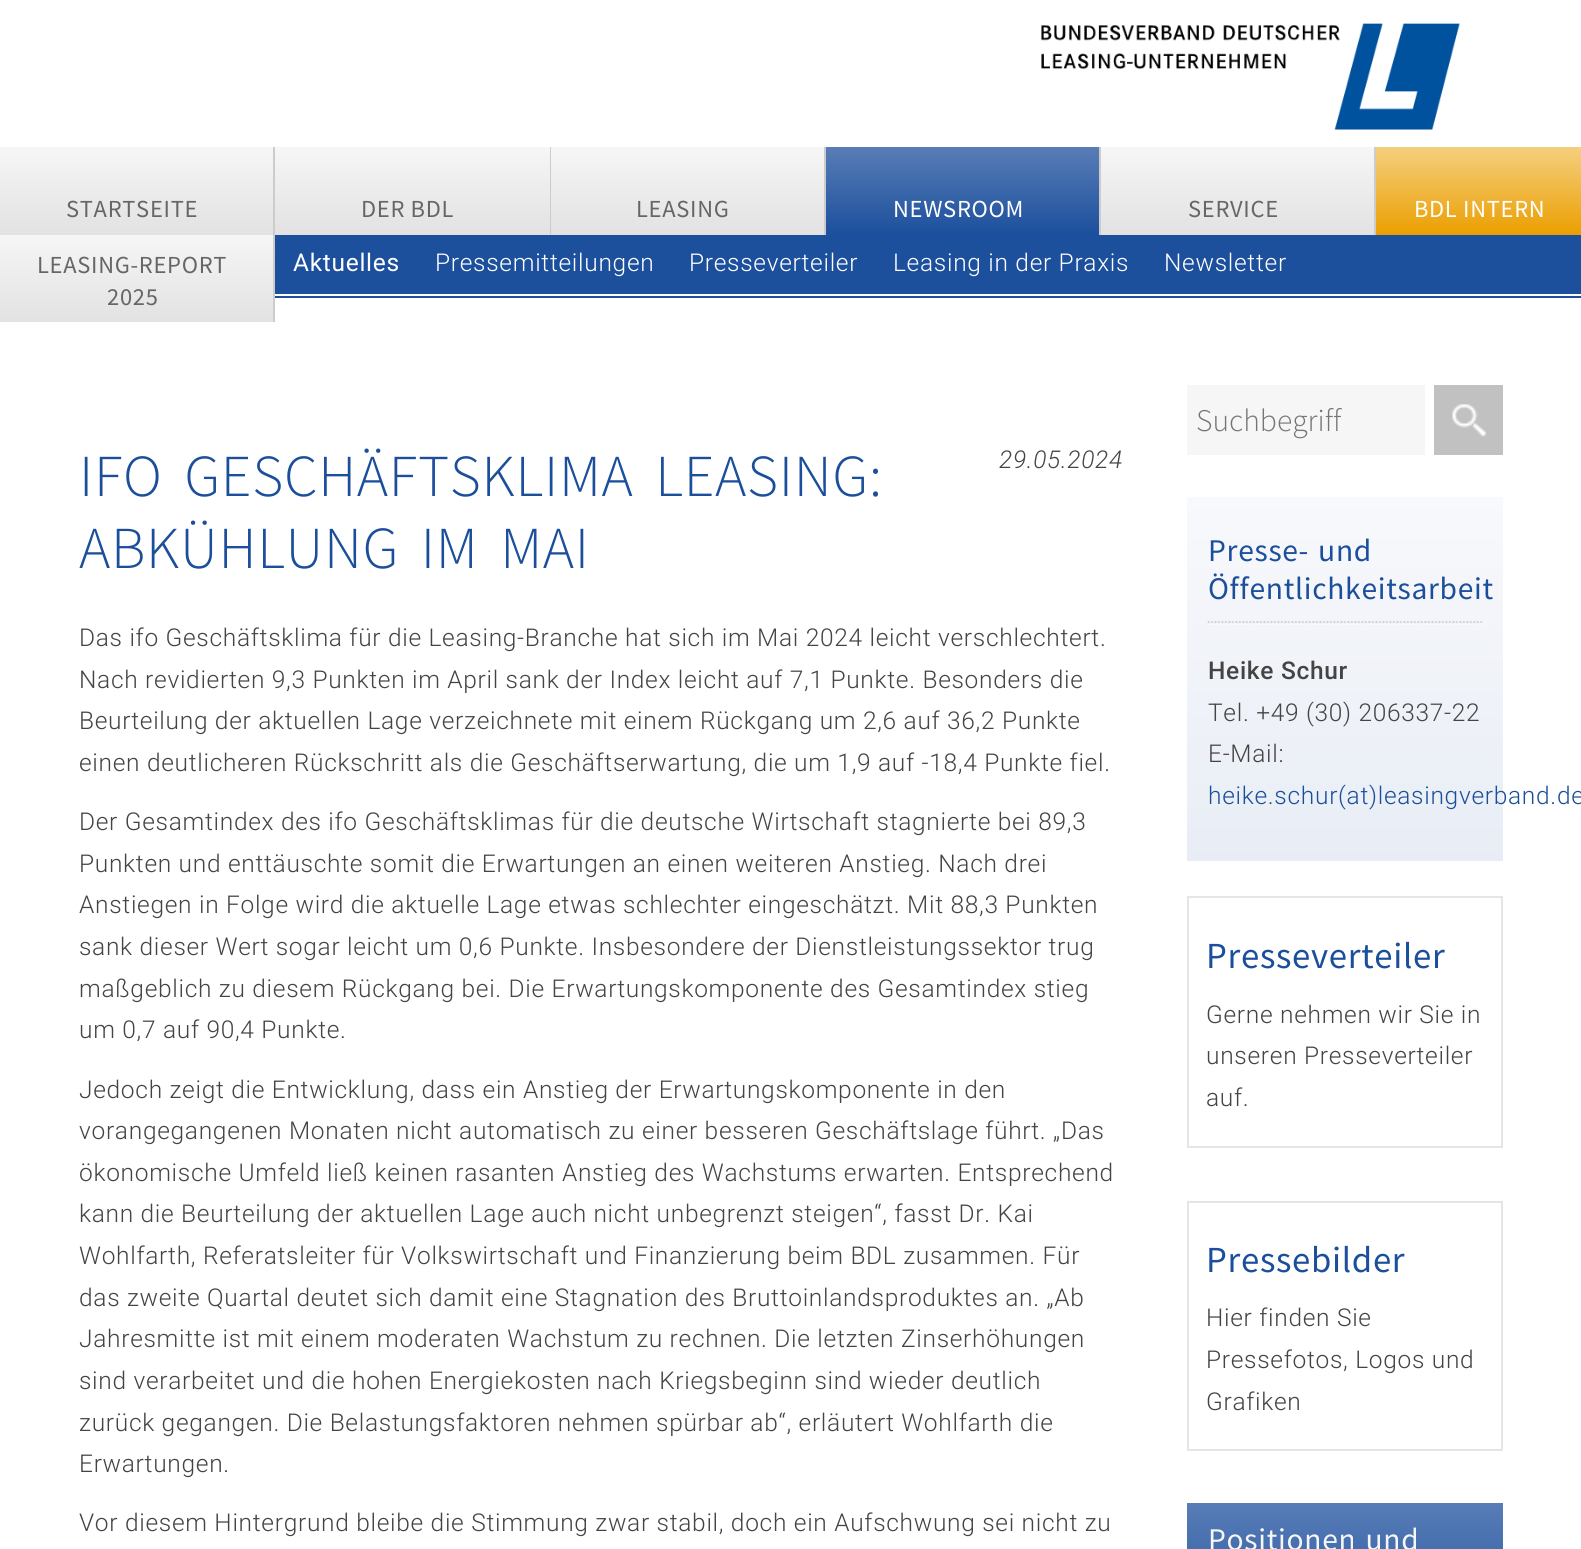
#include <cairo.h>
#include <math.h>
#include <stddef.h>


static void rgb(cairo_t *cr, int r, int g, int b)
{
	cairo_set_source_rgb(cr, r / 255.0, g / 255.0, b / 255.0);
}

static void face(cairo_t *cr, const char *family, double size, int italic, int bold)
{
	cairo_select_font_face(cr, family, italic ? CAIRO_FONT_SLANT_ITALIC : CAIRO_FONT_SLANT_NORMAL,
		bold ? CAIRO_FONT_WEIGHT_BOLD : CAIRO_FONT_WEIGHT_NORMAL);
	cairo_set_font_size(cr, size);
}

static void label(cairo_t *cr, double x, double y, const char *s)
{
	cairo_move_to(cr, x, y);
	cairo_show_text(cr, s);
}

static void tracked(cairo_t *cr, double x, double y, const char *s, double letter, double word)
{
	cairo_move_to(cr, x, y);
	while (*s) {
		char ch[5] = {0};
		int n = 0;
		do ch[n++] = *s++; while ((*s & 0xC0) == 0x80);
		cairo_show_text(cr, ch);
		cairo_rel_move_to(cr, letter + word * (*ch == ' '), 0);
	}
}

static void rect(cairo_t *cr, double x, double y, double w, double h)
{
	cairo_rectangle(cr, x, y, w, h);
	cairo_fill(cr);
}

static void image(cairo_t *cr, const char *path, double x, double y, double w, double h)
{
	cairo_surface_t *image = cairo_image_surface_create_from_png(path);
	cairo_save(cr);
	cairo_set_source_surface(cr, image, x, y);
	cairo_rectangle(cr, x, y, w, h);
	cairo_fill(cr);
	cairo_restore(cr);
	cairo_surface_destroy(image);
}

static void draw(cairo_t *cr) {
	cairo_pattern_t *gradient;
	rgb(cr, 255, 255, 255);
	cairo_paint(cr);
	image(cr, "image0.png", 1041, 23, 419, 107);
	rgb(cr, 204, 204, 204);
	rect(cr, 273, 147, 2, 175);
	gradient = cairo_pattern_create_linear(0, 147, 0, 235);
	cairo_pattern_add_color_stop_rgba(gradient, 0, 0.965, 0.965, 0.965, 1);
	cairo_pattern_add_color_stop_rgba(gradient, 1, 0.886, 0.886, 0.886, 1);
	cairo_set_source(cr, gradient);
	cairo_pattern_destroy(gradient);
	rect(cr, 0, 147, 273, 88);
	face(cr, "Source Sans Pro", 24.5, 0, 0);
	rgb(cr, 102, 102, 102);
	tracked(cr, 66, 217, "STARTSEITE", 0.7, 0);
	rgb(cr, 204, 204, 204);
	rect(cr, 550, 147, 1, 88);
	gradient = cairo_pattern_create_linear(275, 147, 275, 235);
	cairo_pattern_add_color_stop_rgba(gradient, 0, 0.965, 0.965, 0.965, 1);
	cairo_pattern_add_color_stop_rgba(gradient, 1, 0.886, 0.886, 0.886, 1);
	cairo_set_source(cr, gradient);
	cairo_pattern_destroy(gradient);
	rect(cr, 275, 147, 275, 88);
	rgb(cr, 102, 102, 102);
	tracked(cr, 361, 217, "DER BDL", 0.7, 0);
	rgb(cr, 204, 204, 204);
	rect(cr, 824, 147, 2, 88);
	gradient = cairo_pattern_create_linear(551, 147, 551, 235);
	cairo_pattern_add_color_stop_rgba(gradient, 0, 0.965, 0.965, 0.965, 1);
	cairo_pattern_add_color_stop_rgba(gradient, 1, 0.886, 0.886, 0.886, 1);
	cairo_set_source(cr, gradient);
	cairo_pattern_destroy(gradient);
	rect(cr, 551, 147, 273, 88);
	rgb(cr, 102, 102, 102);
	tracked(cr, 636, 217, "LEASING", 0.7, 0);
	rgb(cr, 204, 204, 204);
	rect(cr, 1099, 147, 2, 88);
	gradient = cairo_pattern_create_linear(826, 147, 826, 235);
	cairo_pattern_add_color_stop_rgba(gradient, 0, 0.345, 0.49, 0.718, 1);
	cairo_pattern_add_color_stop_rgba(gradient, 1, 0.11, 0.31, 0.612, 1);
	cairo_set_source(cr, gradient);
	cairo_pattern_destroy(gradient);
	rect(cr, 826, 147, 273, 88);
	rgb(cr, 255, 255, 255);
	tracked(cr, 893, 217, "NEWSROOM", 0.7, 0);
	rgb(cr, 204, 204, 204);
	rect(cr, 1374, 147, 2, 88);
	gradient = cairo_pattern_create_linear(1101, 147, 1101, 235);
	cairo_pattern_add_color_stop_rgba(gradient, 0, 0.965, 0.965, 0.965, 1);
	cairo_pattern_add_color_stop_rgba(gradient, 1, 0.886, 0.886, 0.886, 1);
	cairo_set_source(cr, gradient);
	cairo_pattern_destroy(gradient);
	rect(cr, 1101, 147, 273, 88);
	rgb(cr, 102, 102, 102);
	tracked(cr, 1188, 217, "SERVICE", 0.7, 0);
	gradient = cairo_pattern_create_linear(0, 235, 0, 322);
	cairo_pattern_add_color_stop_rgba(gradient, 0, 0.965, 0.965, 0.965, 1);
	cairo_pattern_add_color_stop_rgba(gradient, 1, 0.886, 0.886, 0.886, 1);
	cairo_set_source(cr, gradient);
	cairo_pattern_destroy(gradient);
	rect(cr, 0, 235, 273, 87);
	rgb(cr, 102, 102, 102);
	tracked(cr, 37, 273, "LEASING-REPORT", 0.7, 0);
	tracked(cr, 107, 305, "2025", 0.7, 0);
	gradient = cairo_pattern_create_linear(1376, 147, 1376, 235);
	cairo_pattern_add_color_stop_rgba(gradient, 0, 0.961, 0.812, 0.498, 1);
	cairo_pattern_add_color_stop_rgba(gradient, 1, 0.922, 0.624, 0.004, 1);
	cairo_set_source(cr, gradient);
	cairo_pattern_destroy(gradient);
	rect(cr, 1376, 147, 205, 88);
	rgb(cr, 255, 255, 255);
	tracked(cr, 1414, 217, "BDL INTERN", 0.7, 0);
	rgb(cr, 28, 79, 156);
	rect(cr, 275, 235, 1306, 59);
	face(cr, "Roboto", 24.5, 0, 0);
	rgb(cr, 255, 255, 255);
	tracked(cr, 293, 271, "Aktuelles", 0.7, 0);
	face(cr, "Roboto Light", 24.5, 0, 0);
	tracked(cr, 435, 271, "Pressemitteilungen", 0.7, 0);
	tracked(cr, 689, 271, "Presseverteiler", 0.7, 0);
	tracked(cr, 893, 271, "Leasing in der Praxis", 0.7, 0);
	tracked(cr, 1164, 271, "Newsletter", 0.7, 0);
	rgb(cr, 28, 79, 156);
	rect(cr, 275, 296, 1306, 2);
	face(cr, "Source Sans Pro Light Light", 59.5, 0, 0);
	rgb(cr, 28, 79, 155);
	tracked(cr, 79, 496, "IFO GESCHÄFTSKLIMA LEASING:", 0.7, 9);
	tracked(cr, 79, 568, "ABKÜHLUNG IM MAI", 0.7, 9);
	face(cr, "Roboto Light", 24.5, 1, 0);
	rgb(cr, 68, 68, 68);
	tracked(cr, 999, 468, "29.05.2024", 0.7, 0);
	face(cr, "Roboto Light", 24.5, 0, 0);
	tracked(cr, 79, 646, "Das ifo Geschäftsklima für die Leasing-Branche hat sich im Mai 2024 leicht verschlechtert.", 0.7, 0);
	tracked(cr, 79, 688, "Nach revidierten 9,3 Punkten im April sank der Index leicht auf 7,1 Punkte. Besonders die", 0.7, 0);
	tracked(cr, 79, 729, "Beurteilung der aktuellen Lage verzeichnete mit einem Rückgang um 2,6 auf 36,2 Punkte", 0.7, 0);
	tracked(cr, 79, 771, "einen deutlicheren Rückschritt als die Geschäftserwartung, die um 1,9 auf -18,4 Punkte fiel.", 0.7, 0);
	tracked(cr, 79, 830, "Der Gesamtindex des ifo Geschäftsklimas für die deutsche Wirtschaft stagnierte bei 89,3", 0.7, 0);
	tracked(cr, 79, 872, "Punkten und enttäuschte somit die Erwartungen an einen weiteren Anstieg. Nach drei", 0.7, 0);
	tracked(cr, 79, 913, "Anstiegen in Folge wird die aktuelle Lage etwas schlechter eingeschätzt. Mit 88,3 Punkten", 0.7, 0);
	tracked(cr, 79, 955, "sank dieser Wert sogar leicht um 0,6 Punkte. Insbesondere der Dienstleistungssektor trug", 0.7, 0);
	tracked(cr, 79, 997, "maßgeblich zu diesem Rückgang bei. Die Erwartungskomponente des Gesamtindex stieg", 0.7, 0);
	tracked(cr, 79, 1038, "um 0,7 auf 90,4 Punkte.", 0.7, 0);
	tracked(cr, 79, 1098, "Jedoch zeigt die Entwicklung, dass ein Anstieg der Erwartungskomponente in den", 0.7, 0);
	tracked(cr, 79, 1139, "vorangegangenen Monaten nicht automatisch zu einer besseren Geschäftslage führt. „Das", 0.7, 0);
	tracked(cr, 79, 1181, "ökonomische Umfeld ließ keinen rasanten Anstieg des Wachstums erwarten. Entsprechend", 0.7, 0);
	tracked(cr, 79, 1222, "kann die Beurteilung der aktuellen Lage auch nicht unbegrenzt steigen“, fasst Dr. Kai", 0.7, 0);
	tracked(cr, 79, 1264, "Wohlfarth, Referatsleiter für Volkswirtschaft und Finanzierung beim BDL zusammen. Für", 0.7, 0);
	tracked(cr, 79, 1306, "das zweite Quartal deutet sich damit eine Stagnation des Bruttoinlandsproduktes an. „Ab", 0.7, 0);
	tracked(cr, 79, 1347, "Jahresmitte ist mit einem moderaten Wachstum zu rechnen. Die letzten Zinserhöhungen", 0.7, 0);
	tracked(cr, 79, 1389, "sind verarbeitet und die hohen Energiekosten nach Kriegsbeginn sind wieder deutlich", 0.7, 0);
	tracked(cr, 79, 1431, "zurück gegangen. Die Belastungsfaktoren nehmen spürbar ab“, erläutert Wohlfarth die", 0.7, 0);
	tracked(cr, 79, 1472, "Erwartungen.", 0.7, 0);
	tracked(cr, 79, 1531, "Vor diesem Hintergrund bleibe die Stimmung zwar stabil, doch ein Aufschwung sei nicht zu", 0.7, 0);
	rgb(cr, 246, 246, 246);
	rect(cr, 1187, 385, 238, 70);
	face(cr, "Source Sans Pro Light Light", 31.5, 0, 0);
	rgb(cr, 117, 117, 117);
	label(cr, 1196, 431, "Suchbegriff");
	rgb(cr, 193, 193, 193);
	rect(cr, 1434, 385, 69, 70);
	image(cr, "image1.png", 1452, 404, 34, 33);
	gradient = cairo_pattern_create_linear(1187, 497, 1187, 861);
	cairo_pattern_add_color_stop_rgba(gradient, 0, 0.973, 0.976, 0.988, 1);
	cairo_pattern_add_color_stop_rgba(gradient, 1, 0.91, 0.929, 0.961, 1);
	cairo_set_source(cr, gradient);
	cairo_pattern_destroy(gradient);
	rect(cr, 1187, 497, 316, 364);
	image(cr, "image2.png", 1207, 621, 275, 4);
	face(cr, "Source Sans Pro", 31.5, 0, 0);
	rgb(cr, 28, 79, 155);
	tracked(cr, 1208, 561, "Presse- und", 0.7, 2);
	tracked(cr, 1208, 599, "Öffentlichkeitsarbeit", 0.7, 0);
	face(cr, "Roboto Medium", 24.5, 0, 0);
	rgb(cr, 68, 68, 68);
	tracked(cr, 1208, 679, "Heike Schur", 0.7, 0);
	face(cr, "Roboto Light", 24.5, 0, 0);
	tracked(cr, 1208, 721, "Tel. +49 (30) 206337-22", 0.7, 0);
	tracked(cr, 1208, 762, "E-Mail:", 0.7, 0);
	rgb(cr, 28, 79, 155);
	tracked(cr, 1208, 804, "heike.schur(at)leasingverband.de", 0.7, 0);
	cairo_rectangle(cr, 1188, 897, 314, 250);
	rgb(cr, 229, 229, 229);
	cairo_stroke(cr);
	face(cr, "Source Sans Pro", 36.75, 0, 0);
	rgb(cr, 28, 79, 155);
	tracked(cr, 1206, 968, "Presseverteiler", 0.7, 0);
	face(cr, "Roboto Light", 24.5, 0, 0);
	rgb(cr, 68, 68, 68);
	tracked(cr, 1206, 1023, "Gerne nehmen wir Sie in", 0.7, 0);
	tracked(cr, 1206, 1064, "unseren Presseverteiler", 0.7, 0);
	tracked(cr, 1206, 1106, "auf.", 0.7, 0);
	cairo_rectangle(cr, 1188, 1202, 314, 248);
	rgb(cr, 229, 229, 229);
	cairo_stroke(cr);
	face(cr, "Source Sans Pro", 36.75, 0, 0);
	rgb(cr, 28, 79, 155);
	tracked(cr, 1206, 1272, "Pressebilder", 0.7, 0);
	face(cr, "Roboto Light", 24.5, 0, 0);
	rgb(cr, 68, 68, 68);
	tracked(cr, 1206, 1326, "Hier finden Sie", 0.7, 0);
	tracked(cr, 1206, 1368, "Pressefotos, Logos und", 0.7, 0);
	tracked(cr, 1206, 1410, "Grafiken", 0.7, 0);
	gradient = cairo_pattern_create_linear(1187, 1503, 1187, 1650);
	cairo_pattern_add_color_stop_rgba(gradient, 0, 0.345, 0.49, 0.718, 1);
	cairo_pattern_add_color_stop_rgba(gradient, 1, 0.11, 0.31, 0.612, 1);
	cairo_set_source(cr, gradient);
	cairo_pattern_destroy(gradient);
	rect(cr, 1187, 1503, 316, 46);
	face(cr, "Source Sans Pro", 31.5, 0, 0);
	rgb(cr, 246, 246, 246);
	tracked(cr, 1208, 1550, "Positionen und", 0.7, 2);
}

int main(void) {
	cairo_surface_t *surface = cairo_image_surface_create(CAIRO_FORMAT_RGB24, 1581, 1549);
	cairo_t *cr = cairo_create(surface);
	cairo_font_options_t *options = cairo_font_options_create();
	cairo_font_options_set_hint_metrics(options, CAIRO_HINT_METRICS_OFF);
	cairo_font_options_set_hint_style(options, CAIRO_HINT_STYLE_NONE);
	cairo_set_font_options(cr, options);
	cairo_set_miter_limit(cr, 4);
	draw(cr);
	cairo_surface_write_to_png(surface, "render.png");
	cairo_font_options_destroy(options);
	cairo_destroy(cr);
	cairo_surface_destroy(surface);
	return 0;
}
